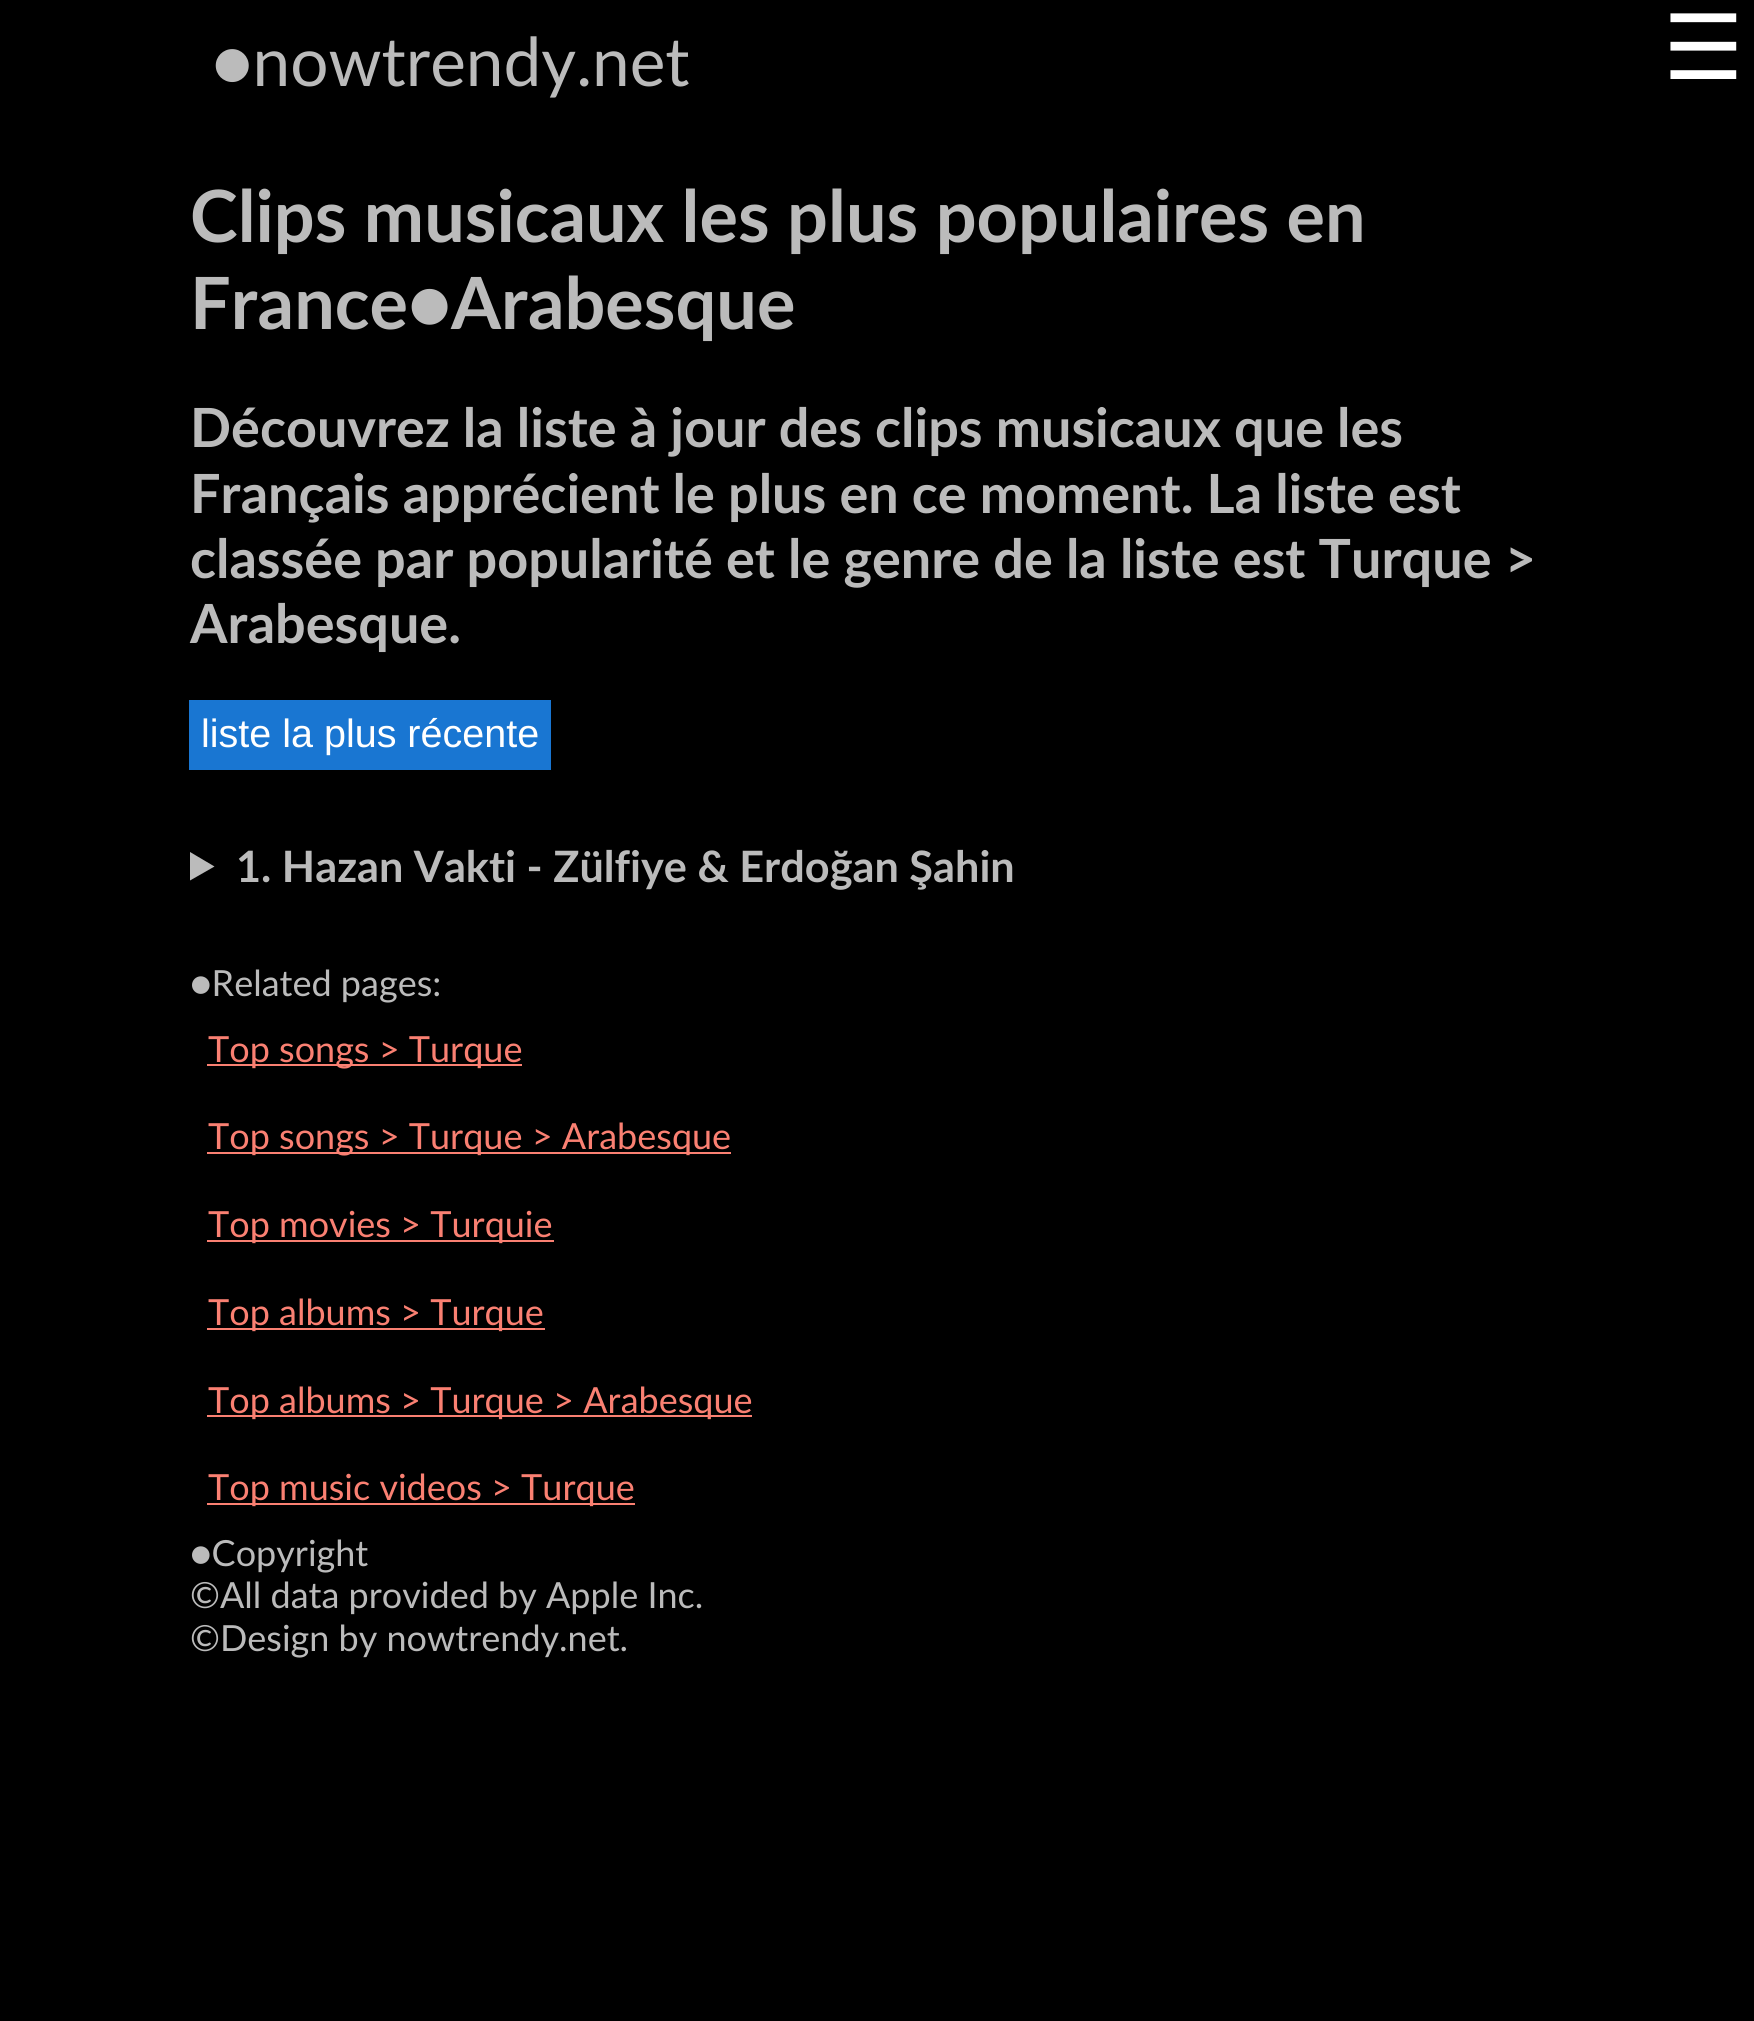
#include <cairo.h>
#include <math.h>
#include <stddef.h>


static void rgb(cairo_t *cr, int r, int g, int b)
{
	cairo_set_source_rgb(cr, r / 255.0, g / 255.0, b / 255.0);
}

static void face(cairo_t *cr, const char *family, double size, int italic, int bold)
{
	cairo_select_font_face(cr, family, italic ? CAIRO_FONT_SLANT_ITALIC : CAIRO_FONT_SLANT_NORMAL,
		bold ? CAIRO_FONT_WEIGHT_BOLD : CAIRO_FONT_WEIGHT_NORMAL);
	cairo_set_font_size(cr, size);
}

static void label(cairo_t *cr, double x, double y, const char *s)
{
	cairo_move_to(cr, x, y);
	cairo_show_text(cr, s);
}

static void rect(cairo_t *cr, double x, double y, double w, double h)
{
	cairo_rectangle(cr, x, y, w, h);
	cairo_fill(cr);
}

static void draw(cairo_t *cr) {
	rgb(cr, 0, 0, 0);
	cairo_paint(cr);
	face(cr, "Lato", 67.5, 0, 0);
	rgb(cr, 187, 187, 187);
	label(cr, 212, 86, "●nowtrendy.net");
	face(cr, "DejaVu Sans", 90, 0, 0);
	rgb(cr, 255, 255, 255);
	label(cr, 1663, 79, "☰");
	face(cr, "Lato", 72, 0, 1);
	rgb(cr, 187, 187, 187);
	label(cr, 190, 242, "Clips musicaux les plus populaires en");
	label(cr, 190, 329, "France●Arabesque");
	face(cr, "Lato", 54, 0, 1);
	label(cr, 190, 447, "Découvrez la liste à jour des clips musicaux que les");
	label(cr, 190, 513, "Français apprécient le plus en ce moment. La liste est");
	label(cr, 190, 578, "classée par popularité et le genre de la liste est Turque >");
	label(cr, 190, 643, "Arabesque.");
	rgb(cr, 25, 118, 210);
	rect(cr, 189, 700, 362, 70);
	face(cr, "Liberation Sans", 39.5, 0, 0);
	rgb(cr, 255, 255, 255);
	label(cr, 201, 747, "liste la plus récente");
	rgb(cr, 187, 187, 187);
	cairo_new_path(cr);
	cairo_move_to(cr, 190, 852);
	cairo_line_to(cr, 214.5, 866.5);
	cairo_line_to(cr, 190, 880.5);
	cairo_close_path(cr);
	cairo_fill(cr);
	face(cr, "Lato", 43.25, 0, 1);
	label(cr, 236, 882, "1. Hazan Vakti - Zülfiye & Erdoğan Şahin");
	face(cr, "Lato", 36, 0, 0);
	label(cr, 190, 996, "●Related pages:");
	rgb(cr, 250, 128, 114);
	rect(cr, 207, 1064, 315, 2);
	label(cr, 208, 1062, "Top songs > Turque");
	rect(cr, 207, 1152, 524, 2);
	label(cr, 208, 1149, "Top songs > Turque > Arabesque");
	rect(cr, 207, 1240, 347, 2);
	label(cr, 208, 1237, "Top movies > Turquie");
	rect(cr, 207, 1328, 338, 2);
	label(cr, 208, 1325, "Top albums > Turque");
	rect(cr, 207, 1415, 545, 2);
	label(cr, 208, 1413, "Top albums > Turque > Arabesque");
	rect(cr, 207, 1503, 428, 2);
	label(cr, 208, 1500, "Top music videos > Turque");
	rgb(cr, 187, 187, 187);
	label(cr, 190, 1566, "●Copyright");
	label(cr, 190, 1608, "©All data provided by Apple Inc.");
	label(cr, 190, 1651, "©Design by nowtrendy.net.");
}

int main(void) {
	cairo_surface_t *surface = cairo_image_surface_create(CAIRO_FORMAT_RGB24, 1754, 2021);
	cairo_t *cr = cairo_create(surface);
	cairo_font_options_t *options = cairo_font_options_create();
	cairo_font_options_set_hint_metrics(options, CAIRO_HINT_METRICS_OFF);
	cairo_font_options_set_hint_style(options, CAIRO_HINT_STYLE_NONE);
	cairo_set_font_options(cr, options);
	cairo_set_miter_limit(cr, 4);
	draw(cr);
	cairo_surface_write_to_png(surface, "render.png");
	cairo_font_options_destroy(options);
	cairo_destroy(cr);
	cairo_surface_destroy(surface);
	return 0;
}
